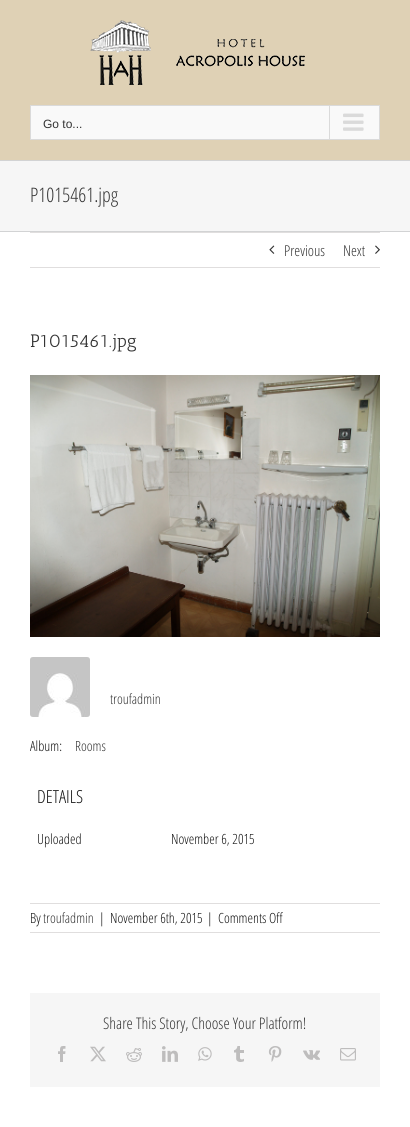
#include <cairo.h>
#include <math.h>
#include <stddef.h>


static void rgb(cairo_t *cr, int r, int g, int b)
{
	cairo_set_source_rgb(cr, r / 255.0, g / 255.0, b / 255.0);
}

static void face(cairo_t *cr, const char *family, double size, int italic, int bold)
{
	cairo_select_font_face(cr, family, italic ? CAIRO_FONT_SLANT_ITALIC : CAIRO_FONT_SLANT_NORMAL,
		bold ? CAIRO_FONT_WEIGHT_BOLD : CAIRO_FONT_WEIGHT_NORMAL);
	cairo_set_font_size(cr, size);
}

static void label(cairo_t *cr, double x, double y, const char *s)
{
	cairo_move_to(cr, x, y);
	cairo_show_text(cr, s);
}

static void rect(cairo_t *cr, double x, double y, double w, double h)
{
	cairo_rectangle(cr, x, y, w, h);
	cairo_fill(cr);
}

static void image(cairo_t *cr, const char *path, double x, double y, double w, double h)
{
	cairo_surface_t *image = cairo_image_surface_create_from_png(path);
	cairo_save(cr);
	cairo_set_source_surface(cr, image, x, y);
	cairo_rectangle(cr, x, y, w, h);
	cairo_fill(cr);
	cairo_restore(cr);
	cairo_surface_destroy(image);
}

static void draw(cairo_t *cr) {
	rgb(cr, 255, 255, 255);
	cairo_paint(cr);
	rgb(cr, 223, 209, 181);
	rect(cr, 0, 0, 410, 160);
	image(cr, "image0.png", 90, 20, 215, 65);
	rgb(cr, 249, 249, 249);
	cairo_rectangle(cr, 30.5, 105.5, 349, 34);
	cairo_fill_preserve(cr);
	rgb(cr, 218, 218, 218);
	cairo_set_line_width(cr, 1);
	cairo_stroke(cr);
	face(cr, "Liberation Sans", 12, 0, 0);
	rgb(cr, 51, 51, 51);
	label(cr, 43, 128, "Go to...");
	rgb(cr, 218, 218, 218);
	rect(cr, 329, 106, 1, 33);
	image(cr, "image1.png", 343, 113, 21, 18);
	rgb(cr, 246, 246, 246);
	rect(cr, 0, 161, 410, 70);
	rgb(cr, 210, 211, 212);
	rect(cr, 0, 160, 410, 1);
	rect(cr, 0, 231, 410, 1);
	face(cr, "Open Sans Condensed Light", 20, 0, 0);
	rgb(cr, 51, 51, 51);
	label(cr, 30, 202, "P1015461.jpg");
	rgb(cr, 224, 222, 222);
	rect(cr, 30, 232, 350, 1);
	rect(cr, 30, 267, 350, 1);
	image(cr, "image2.png", 269, 245, 6, 9);
	face(cr, "Open Sans Condensed Light", 15, 0, 0);
	rgb(cr, 51, 51, 51);
	label(cr, 284, 256, "Previous");
	label(cr, 343, 256, "Next");
	image(cr, "image3.png", 375, 245, 5, 9);
	face(cr, "Antic Slab", 18, 0, 0);
	label(cr, 30, 347, "P1015461.jpg");
	image(cr, "image4.png", 30, 375, 350, 262);
	image(cr, "image5.png", 30, 657, 60, 60);
	face(cr, "Open Sans Condensed Light", 14, 0, 0);
	label(cr, 110, 704, "troufadmin");
	rgb(cr, 17, 17, 17);
	label(cr, 30, 751, "Album:");
	rgb(cr, 51, 51, 51);
	label(cr, 75, 751, "Rooms");
	face(cr, "Open Sans Condensed Light", 18, 0, 0);
	rgb(cr, 17, 17, 17);
	label(cr, 37, 803, "DETAILS");
	face(cr, "Open Sans Condensed Light", 14, 0, 0);
	label(cr, 37, 844, "Uploaded");
	label(cr, 171, 844, "November 6, 2015");
	rgb(cr, 224, 222, 222);
	rect(cr, 30, 903, 350, 1);
	rect(cr, 30, 932, 350, 1);
	rgb(cr, 17, 17, 17);
	label(cr, 30, 923, "By");
	rgb(cr, 51, 51, 51);
	label(cr, 43, 923, "troufadmin");
	rgb(cr, 17, 17, 17);
	label(cr, 99, 923, "|");
	label(cr, 110, 923, "November 6th, 2015");
	label(cr, 207, 923, "|");
	label(cr, 218, 923, "Comments Off");
	rgb(cr, 246, 246, 246);
	rect(cr, 30, 993, 350, 94);
	face(cr, "Open Sans Condensed Light", 16, 0, 0);
	rgb(cr, 51, 51, 51);
	label(cr, 103, 1029, "Share This Story, Choose Your Platform!");
	image(cr, "image6.png", 58, 1046, 8, 16);
	image(cr, "image7.png", 90, 1046, 16, 16);
	image(cr, "image8.png", 126, 1048, 16, 14);
	image(cr, "image9.png", 162, 1046, 16, 16);
	image(cr, "image10.png", 198, 1047, 14, 14);
	image(cr, "image11.png", 234, 1046, 10, 16);
	image(cr, "image12.png", 268, 1046, 14, 16);
	image(cr, "image13.png", 303, 1050, 17, 10);
	image(cr, "image14.png", 340, 1048, 16, 13);
}

int main(void) {
	cairo_surface_t *surface = cairo_image_surface_create(CAIRO_FORMAT_RGB24, 410, 1127);
	cairo_t *cr = cairo_create(surface);
	cairo_font_options_t *options = cairo_font_options_create();
	cairo_font_options_set_hint_metrics(options, CAIRO_HINT_METRICS_OFF);
	cairo_font_options_set_hint_style(options, CAIRO_HINT_STYLE_NONE);
	cairo_set_font_options(cr, options);
	cairo_set_miter_limit(cr, 4);
	draw(cr);
	cairo_surface_write_to_png(surface, "render.png");
	cairo_font_options_destroy(options);
	cairo_destroy(cr);
	cairo_surface_destroy(surface);
	return 0;
}
